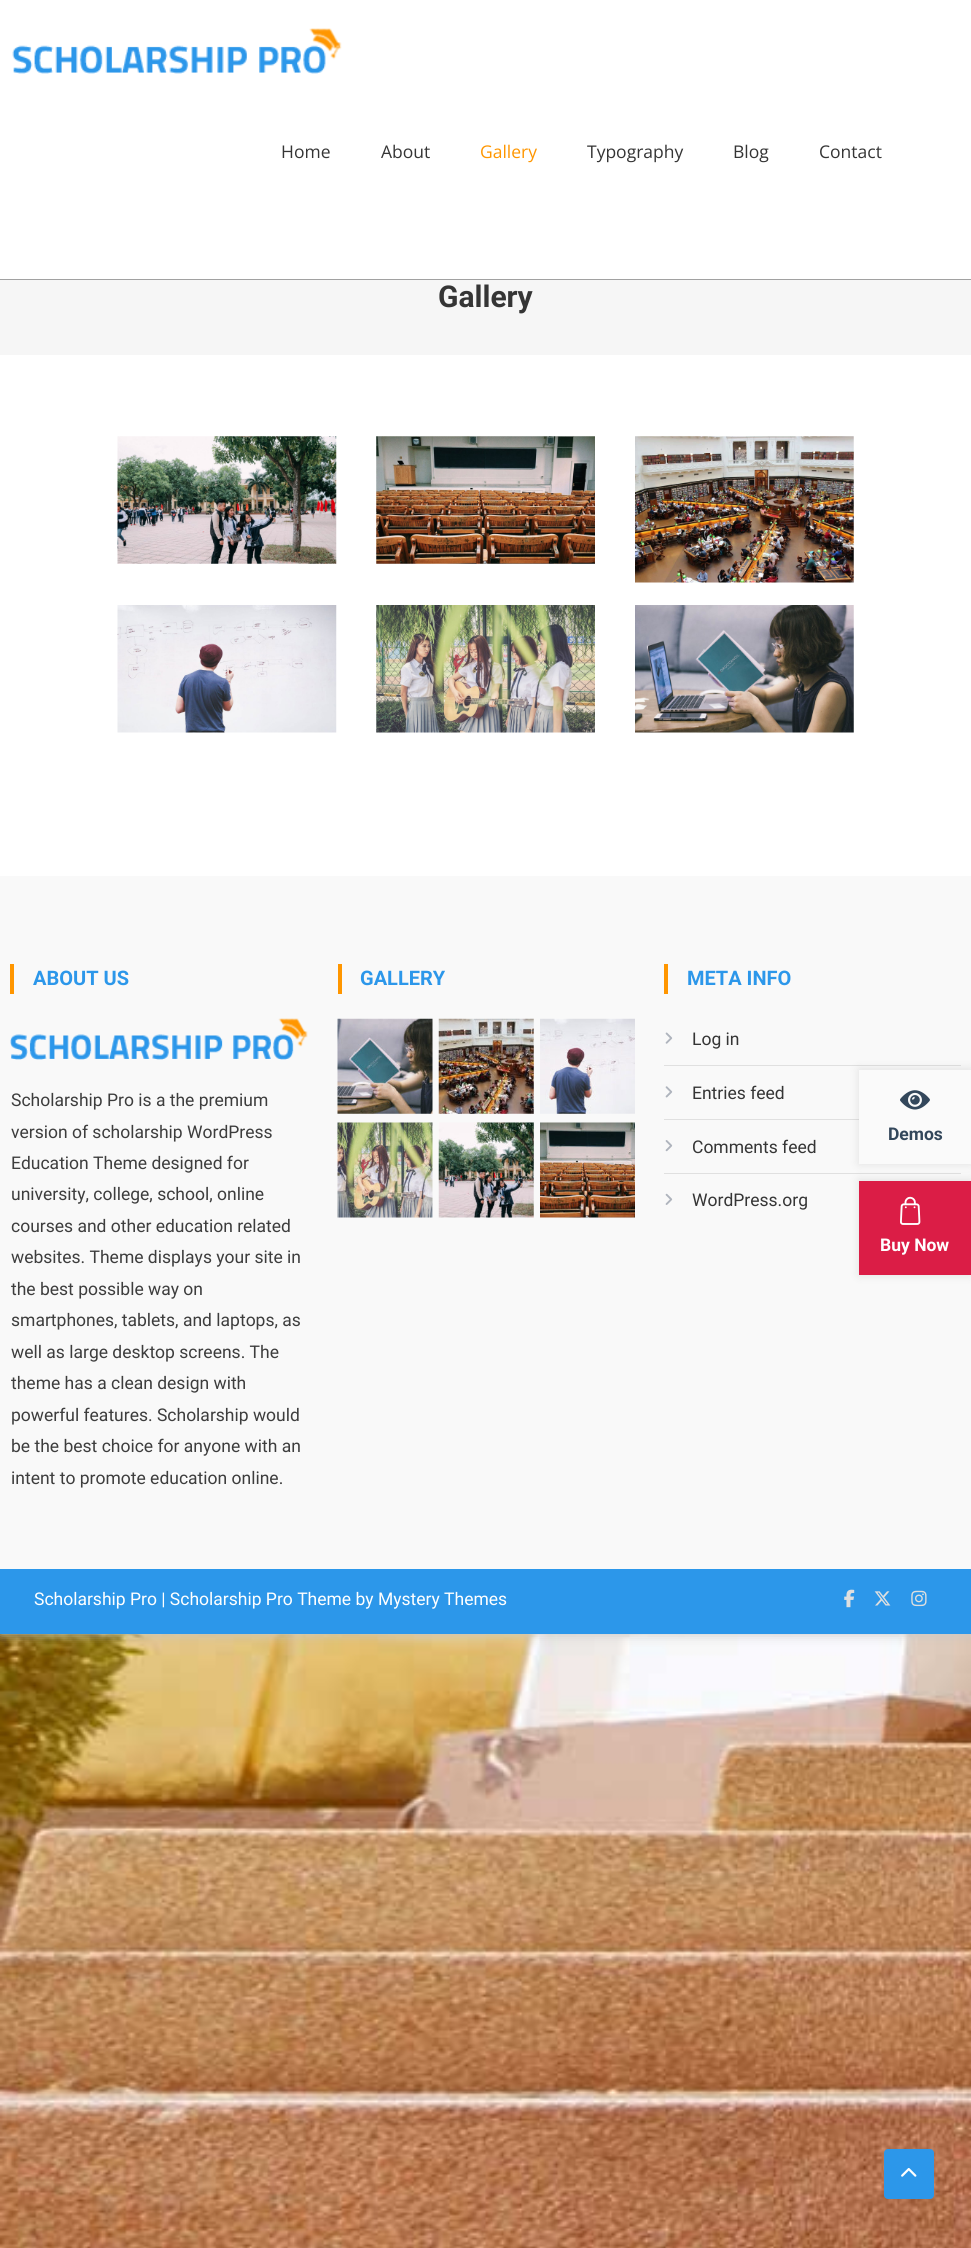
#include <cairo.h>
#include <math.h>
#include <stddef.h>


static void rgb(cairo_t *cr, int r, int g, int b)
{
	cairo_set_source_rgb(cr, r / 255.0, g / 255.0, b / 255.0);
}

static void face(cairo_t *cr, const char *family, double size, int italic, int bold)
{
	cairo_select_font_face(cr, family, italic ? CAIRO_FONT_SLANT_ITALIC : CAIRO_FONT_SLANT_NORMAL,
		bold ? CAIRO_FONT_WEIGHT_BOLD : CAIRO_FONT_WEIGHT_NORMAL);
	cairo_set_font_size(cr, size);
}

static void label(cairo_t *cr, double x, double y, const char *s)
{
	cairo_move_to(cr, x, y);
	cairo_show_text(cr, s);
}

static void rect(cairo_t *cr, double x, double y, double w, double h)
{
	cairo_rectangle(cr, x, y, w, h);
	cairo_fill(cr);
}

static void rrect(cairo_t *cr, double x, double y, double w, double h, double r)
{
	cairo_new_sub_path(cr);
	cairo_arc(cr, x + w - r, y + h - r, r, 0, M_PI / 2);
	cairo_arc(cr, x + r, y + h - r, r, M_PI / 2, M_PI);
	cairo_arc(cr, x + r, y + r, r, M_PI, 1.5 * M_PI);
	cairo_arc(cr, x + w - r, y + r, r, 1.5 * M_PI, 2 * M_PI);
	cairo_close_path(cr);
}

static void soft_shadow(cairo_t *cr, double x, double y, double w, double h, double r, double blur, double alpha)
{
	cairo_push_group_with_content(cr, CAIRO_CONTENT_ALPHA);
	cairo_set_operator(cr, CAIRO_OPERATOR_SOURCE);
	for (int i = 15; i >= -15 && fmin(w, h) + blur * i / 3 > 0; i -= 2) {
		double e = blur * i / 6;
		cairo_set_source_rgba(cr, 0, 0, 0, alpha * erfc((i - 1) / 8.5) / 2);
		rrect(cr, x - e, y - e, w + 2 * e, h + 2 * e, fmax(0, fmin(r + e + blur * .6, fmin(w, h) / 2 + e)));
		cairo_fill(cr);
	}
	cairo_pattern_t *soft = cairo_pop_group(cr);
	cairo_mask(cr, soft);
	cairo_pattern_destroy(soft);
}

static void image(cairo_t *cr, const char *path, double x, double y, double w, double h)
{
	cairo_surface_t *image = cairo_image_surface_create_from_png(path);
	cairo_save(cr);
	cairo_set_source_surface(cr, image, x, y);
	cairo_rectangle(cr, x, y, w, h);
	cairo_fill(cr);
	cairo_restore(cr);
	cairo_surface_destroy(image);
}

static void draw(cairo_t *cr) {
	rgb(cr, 255, 255, 255);
	cairo_paint(cr);
	image(cr, "image0.png", 0, 1634, 971, 614);
	rgb(cr, 199, 199, 199);
	soft_shadow(cr, 0, 0, 971, 1634, 0, 6, 1);
	rgb(cr, 255, 255, 255);
	rect(cr, 0, 355, 971, 521);
	rect(cr, 0, 0, 971, 279);
	rgb(cr, 161, 161, 161);
	rect(cr, 0, 279, 971, 1);
	image(cr, "image1.png", 12, 28, 330, 46);
	face(cr, "Open Sans", 17.5, 0, 0);
	rgb(cr, 53, 53, 53);
	label(cr, 281, 158, "Home");
	label(cr, 381, 158, "About");
	rgb(cr, 255, 150, 0);
	label(cr, 480, 158, "Gallery");
	rgb(cr, 53, 53, 53);
	label(cr, 587, 158, "Typography");
	label(cr, 733, 158, "Blog");
	label(cr, 819, 158, "Contact");
	rgb(cr, 246, 246, 246);
	rect(cr, 0, 280, 971, 75);
	face(cr, "Roboto", 30, 0, 1);
	rgb(cr, 53, 53, 53);
	label(cr, 438, 307, "Gallery");
	image(cr, "image2.png", 117, 436, 220, 128);
	image(cr, "image3.png", 376, 436, 219, 128);
	image(cr, "image4.png", 635, 436, 219, 147);
	image(cr, "image5.png", 117, 605, 220, 128);
	image(cr, "image6.png", 376, 605, 219, 128);
	image(cr, "image7.png", 635, 605, 219, 128);
	rgb(cr, 249, 249, 249);
	rect(cr, 0, 876, 971, 693);
	rgb(cr, 255, 150, 0);
	rect(cr, 10, 964, 4, 30);
	face(cr, "Roboto", 20, 0, 1);
	rgb(cr, 44, 151, 234);
	label(cr, 33, 985, "ABOUT US");
	image(cr, "image8.png", 10, 1018, 298, 42);
	face(cr, "Roboto", 17.5, 0, 0);
	rgb(cr, 61, 61, 61);
	label(cr, 11, 1106, "Scholarship Pro is a the premium");
	label(cr, 11, 1138, "version of scholarship WordPress");
	label(cr, 11, 1169, "Education Theme designed for");
	label(cr, 11, 1200, "university, college, school, online");
	label(cr, 11, 1232, "courses and other education related");
	label(cr, 11, 1263, "websites. Theme displays your site in");
	label(cr, 11, 1295, "the best possible way on");
	label(cr, 11, 1326, "smartphones, tablets, and laptops, as");
	label(cr, 11, 1358, "well as large desktop screens. The");
	label(cr, 11, 1389, "theme has a clean design with");
	label(cr, 11, 1421, "powerful features. Scholarship would");
	label(cr, 11, 1452, "be the best choice for anyone with an");
	label(cr, 11, 1484, "intent to promote education online.");
	rgb(cr, 255, 150, 0);
	rect(cr, 338, 964, 4, 30);
	face(cr, "Roboto", 20, 0, 1);
	rgb(cr, 44, 151, 234);
	label(cr, 360, 985, "GALLERY");
	image(cr, "image9.png", 337, 1018, 96, 96);
	image(cr, "image10.png", 438, 1018, 96, 96);
	image(cr, "image11.png", 540, 1018, 95, 96);
	image(cr, "image12.png", 337, 1122, 96, 96);
	image(cr, "image13.png", 438, 1122, 96, 96);
	image(cr, "image14.png", 540, 1122, 95, 96);
	rgb(cr, 255, 150, 0);
	rect(cr, 664, 964, 4, 30);
	rgb(cr, 44, 151, 234);
	label(cr, 687, 985, "META INFO");
	rgb(cr, 224, 224, 224);
	rect(cr, 664, 1065, 297, 1);
	image(cr, "image15.png", 665, 1032, 8, 12);
	face(cr, "Roboto", 17.5, 0, 0);
	rgb(cr, 53, 53, 53);
	label(cr, 692, 1045, "Log in");
	rgb(cr, 224, 224, 224);
	rect(cr, 664, 1119, 195, 1);
	image(cr, "image16.png", 665, 1086, 8, 12);
	rgb(cr, 53, 53, 53);
	label(cr, 692, 1099, "Entries feed");
	rgb(cr, 224, 224, 224);
	rect(cr, 664, 1173, 297, 1);
	image(cr, "image17.png", 665, 1140, 8, 12);
	rgb(cr, 53, 53, 53);
	label(cr, 692, 1153, "Comments feed");
	image(cr, "image18.png", 665, 1193, 8, 12);
	label(cr, 692, 1206, "WordPress.org");
	rgb(cr, 44, 151, 234);
	rect(cr, 0, 1569, 971, 65);
	rgb(cr, 255, 255, 255);
	label(cr, 34, 1605, "Scholarship Pro | Scholarship Pro Theme by Mystery Themes");
	image(cr, "image19.png", 844, 1589, 11, 19);
	image(cr, "image20.png", 874, 1591, 17, 15);
	image(cr, "image21.png", 911, 1590, 16, 17);
	rgb(cr, 44, 151, 234);
	rrect(cr, 884, 2149, 50, 50, 4);
	cairo_fill(cr);
	image(cr, "image22.png", 901, 2168, 16, 9);
	rgb(cr, 0, 0, 0);
	soft_shadow(cr, 859, 1069, 112, 95, 0, 5, 0.1);
	rgb(cr, 250, 250, 250);
	rect(cr, 859, 1070, 112, 94);
	face(cr, "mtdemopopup", 30, 0, 0);
	rgb(cr, 51, 71, 91);
	label(cr, 900, 1113, "꤃");
	face(cr, "Roboto", 17.5, 0, 1);
	label(cr, 888, 1140, "Demos");
	rgb(cr, 0, 0, 0);
	soft_shadow(cr, 859, 1180, 112, 95, 0, 5, 0.1);
	rgb(cr, 219, 29, 70);
	rect(cr, 859, 1181, 112, 94);
	face(cr, "mtdemopopup", 30, 0, 0);
	rgb(cr, 255, 255, 255);
	label(cr, 900, 1224, "꤂");
	face(cr, "Roboto", 17.5, 0, 1);
	label(cr, 880, 1251, "Buy Now");
}

int main(void) {
	cairo_surface_t *surface = cairo_image_surface_create(CAIRO_FORMAT_RGB24, 971, 2248);
	cairo_t *cr = cairo_create(surface);
	cairo_font_options_t *options = cairo_font_options_create();
	cairo_font_options_set_hint_metrics(options, CAIRO_HINT_METRICS_OFF);
	cairo_font_options_set_hint_style(options, CAIRO_HINT_STYLE_NONE);
	cairo_set_font_options(cr, options);
	cairo_set_miter_limit(cr, 4);
	draw(cr);
	cairo_surface_write_to_png(surface, "render.png");
	cairo_font_options_destroy(options);
	cairo_destroy(cr);
	cairo_surface_destroy(surface);
	return 0;
}
